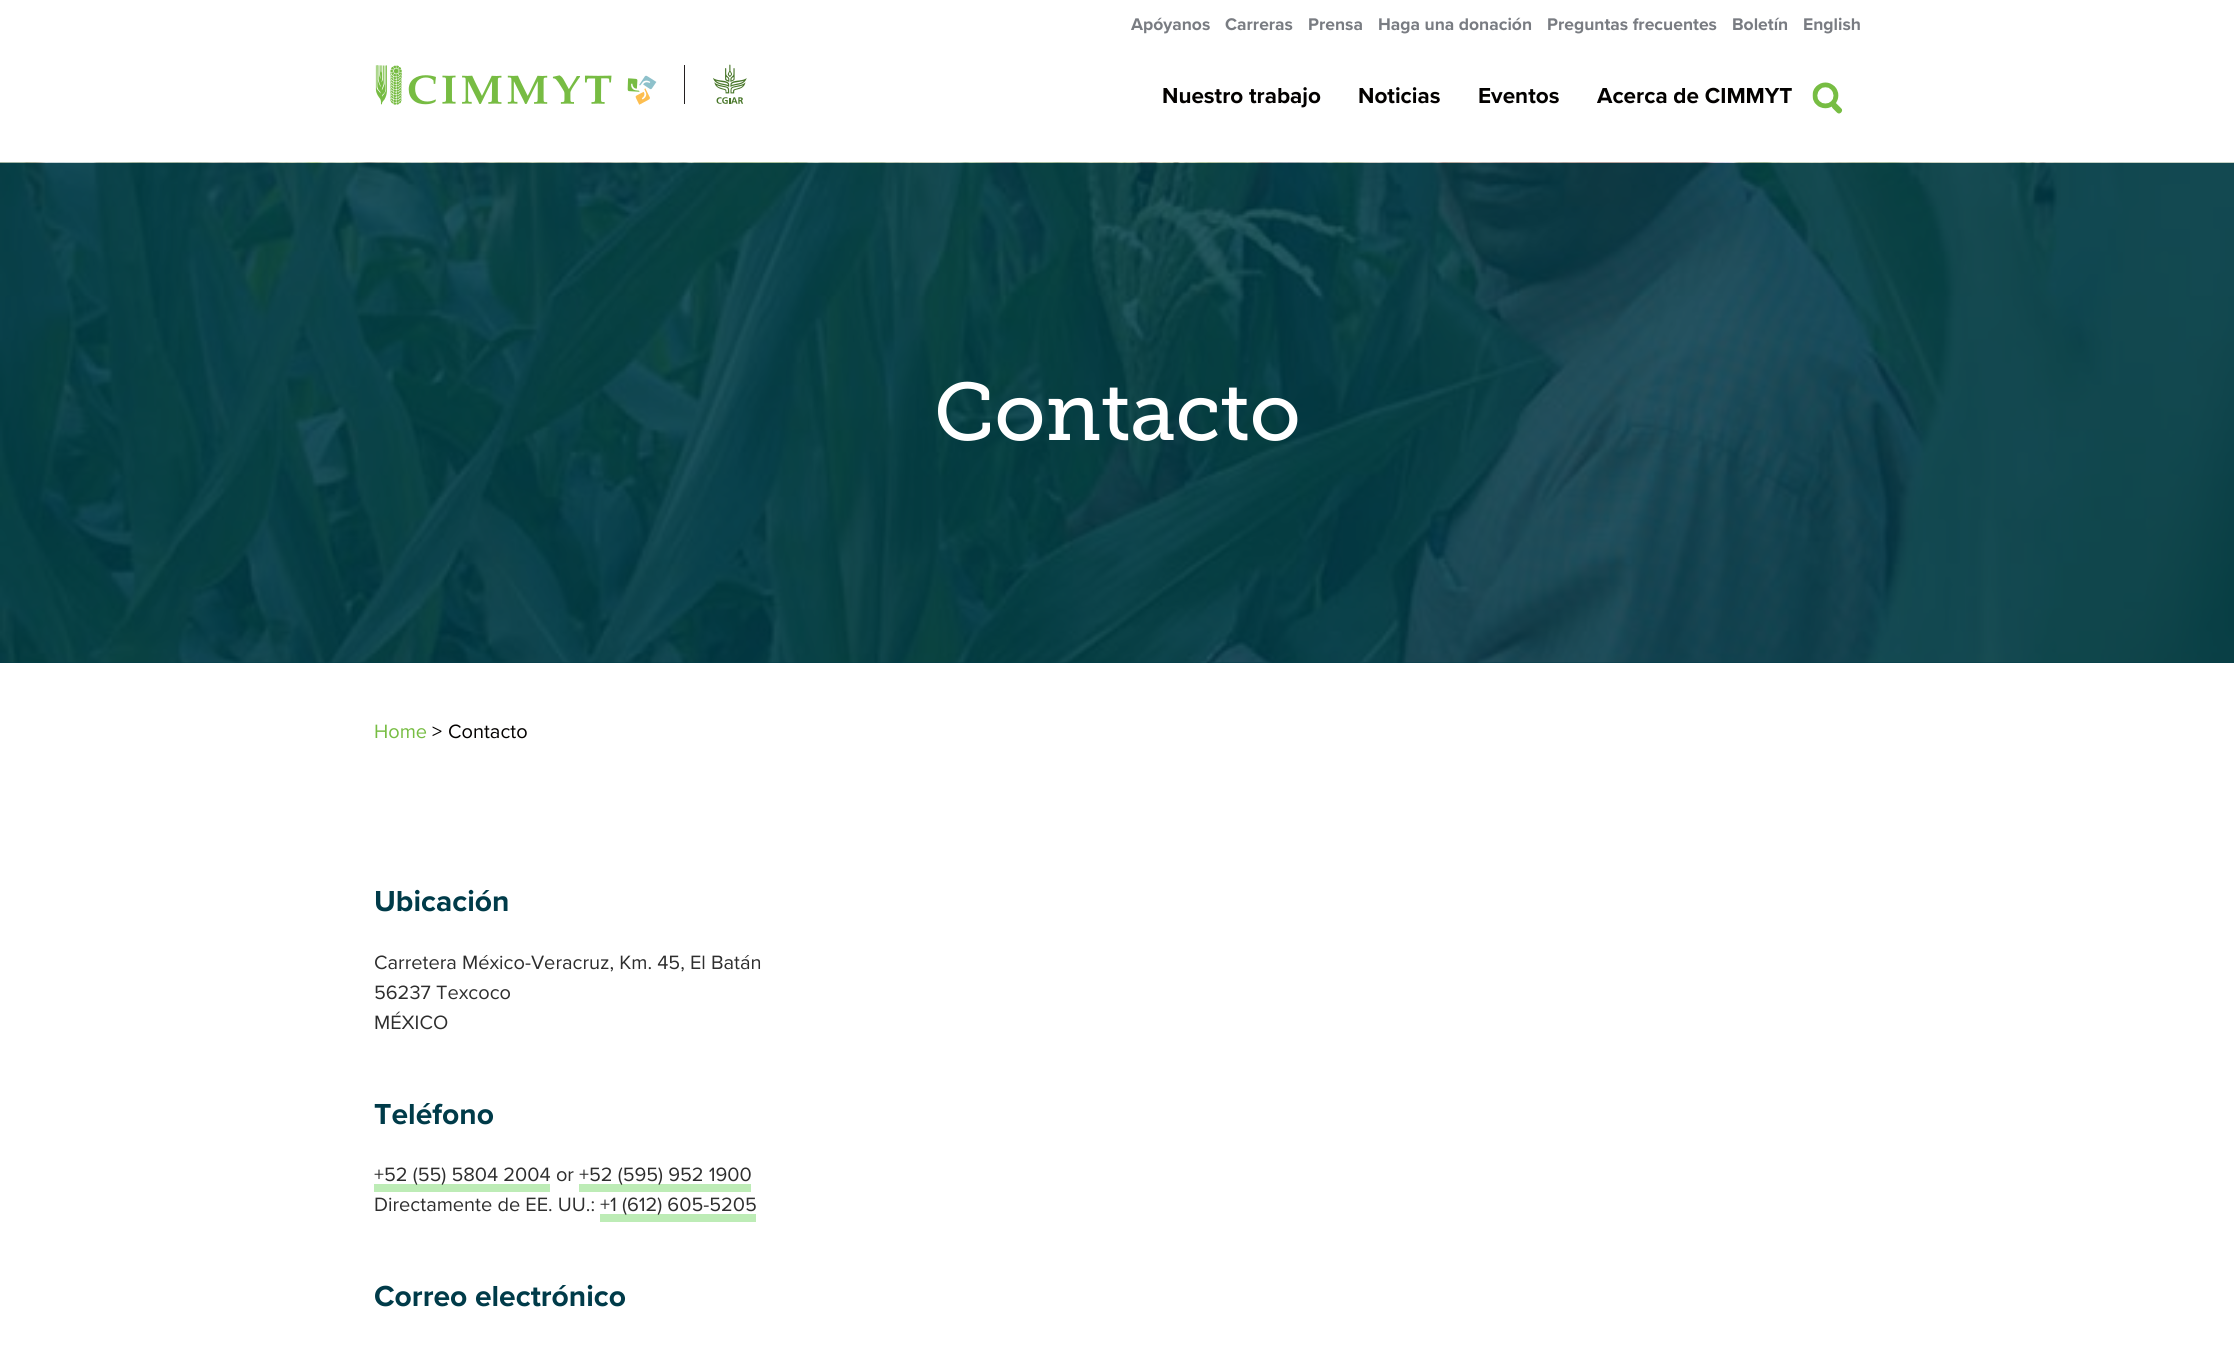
#include <cairo.h>
#include <math.h>
#include <stddef.h>


static void rgb(cairo_t *cr, int r, int g, int b)
{
	cairo_set_source_rgb(cr, r / 255.0, g / 255.0, b / 255.0);
}

static void face(cairo_t *cr, const char *family, double size, int italic, int bold)
{
	cairo_select_font_face(cr, family, italic ? CAIRO_FONT_SLANT_ITALIC : CAIRO_FONT_SLANT_NORMAL,
		bold ? CAIRO_FONT_WEIGHT_BOLD : CAIRO_FONT_WEIGHT_NORMAL);
	cairo_set_font_size(cr, size);
}

static void label(cairo_t *cr, double x, double y, const char *s)
{
	cairo_move_to(cr, x, y);
	cairo_show_text(cr, s);
}

static void rect(cairo_t *cr, double x, double y, double w, double h)
{
	cairo_rectangle(cr, x, y, w, h);
	cairo_fill(cr);
}

static void image(cairo_t *cr, const char *path, double x, double y, double w, double h)
{
	cairo_surface_t *image = cairo_image_surface_create_from_png(path);
	cairo_save(cr);
	cairo_set_source_surface(cr, image, x, y);
	cairo_rectangle(cr, x, y, w, h);
	cairo_fill(cr);
	cairo_restore(cr);
	cairo_surface_destroy(image);
}

static void draw(cairo_t *cr) {
	rgb(cr, 255, 255, 255);
	cairo_paint(cr);
	face(cr, "Proxima Nova", 17.5, 0, 1);
	rgb(cr, 121, 124, 130);
	label(cr, 1131, 30, "Apóyanos");
	label(cr, 1225, 30, "Carreras");
	label(cr, 1308, 30, "Prensa");
	label(cr, 1378, 30, "Haga una donación");
	label(cr, 1547, 30, "Preguntas frecuentes");
	label(cr, 1732, 30, "Boletín");
	label(cr, 1803, 30, "English");
	image(cr, "image0.png", 375, 64, 372, 41);
	face(cr, "Proxima Nova", 22.5, 0, 1);
	rgb(cr, 3, 1, 0);
	label(cr, 1162, 103, "Nuestro trabajo");
	label(cr, 1358, 103, "Noticias");
	label(cr, 1478, 103, "Eventos");
	label(cr, 1597, 103, "Acerca de CIMMYT");
	image(cr, "image1.png", 1812, 82, 31, 32);
	rgb(cr, 0, 59, 73);
	rect(cr, 0, 662, 2234, 1);
	image(cr, "image2.png", 0, 162, 2234, 501);
	image(cr, "image3.png", 0, 162, 2234, 501);
	face(cr, "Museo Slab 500", 81.25, 0, 0);
	rgb(cr, 255, 255, 255);
	label(cr, 934, 440, "Contacto");
	face(cr, "Proxima Nova", 20, 0, 0);
	rgb(cr, 119, 189, 67);
	label(cr, 374, 738, "Home");
	rgb(cr, 3, 1, 0);
	label(cr, 432, 738, ">");
	label(cr, 448, 738, "Contacto");
	face(cr, "Proxima Nova", 30, 0, 1);
	rgb(cr, 0, 59, 73);
	label(cr, 374, 911, "Ubicación");
	face(cr, "Proxima Nova", 20, 0, 0);
	rgb(cr, 46, 46, 46);
	label(cr, 374, 969, "Carretera México-Veracruz, Km. 45, El Batán");
	label(cr, 374, 999, "56237 Texcoco");
	label(cr, 374, 1029, "MÉXICO");
	face(cr, "Proxima Nova", 30, 0, 1);
	rgb(cr, 0, 59, 73);
	label(cr, 374, 1124, "Teléfono");
	rgb(cr, 189, 236, 182);
	rect(cr, 374, 1184, 176, 8);
	face(cr, "Proxima Nova", 20, 0, 0);
	rgb(cr, 46, 46, 46);
	label(cr, 374, 1181, "+52 (55) 5804 2004 or");
	rgb(cr, 189, 236, 182);
	rect(cr, 579, 1184, 172, 8);
	rgb(cr, 46, 46, 46);
	label(cr, 579, 1181, "+52 (595) 952 1900");
	label(cr, 374, 1211, "Directamente de EE. UU.:");
	rgb(cr, 189, 236, 182);
	rect(cr, 600, 1214, 156, 8);
	rgb(cr, 46, 46, 46);
	label(cr, 600, 1211, "+1 (612) 605-5205");
	face(cr, "Proxima Nova", 30, 0, 1);
	rgb(cr, 0, 59, 73);
	label(cr, 374, 1306, "Correo electrónico");
}

int main(void) {
	cairo_surface_t *surface = cairo_image_surface_create(CAIRO_FORMAT_RGB24, 2234, 1351);
	cairo_t *cr = cairo_create(surface);
	cairo_font_options_t *options = cairo_font_options_create();
	cairo_font_options_set_hint_metrics(options, CAIRO_HINT_METRICS_OFF);
	cairo_font_options_set_hint_style(options, CAIRO_HINT_STYLE_NONE);
	cairo_set_font_options(cr, options);
	cairo_set_miter_limit(cr, 4);
	draw(cr);
	cairo_surface_write_to_png(surface, "render.png");
	cairo_font_options_destroy(options);
	cairo_destroy(cr);
	cairo_surface_destroy(surface);
	return 0;
}
